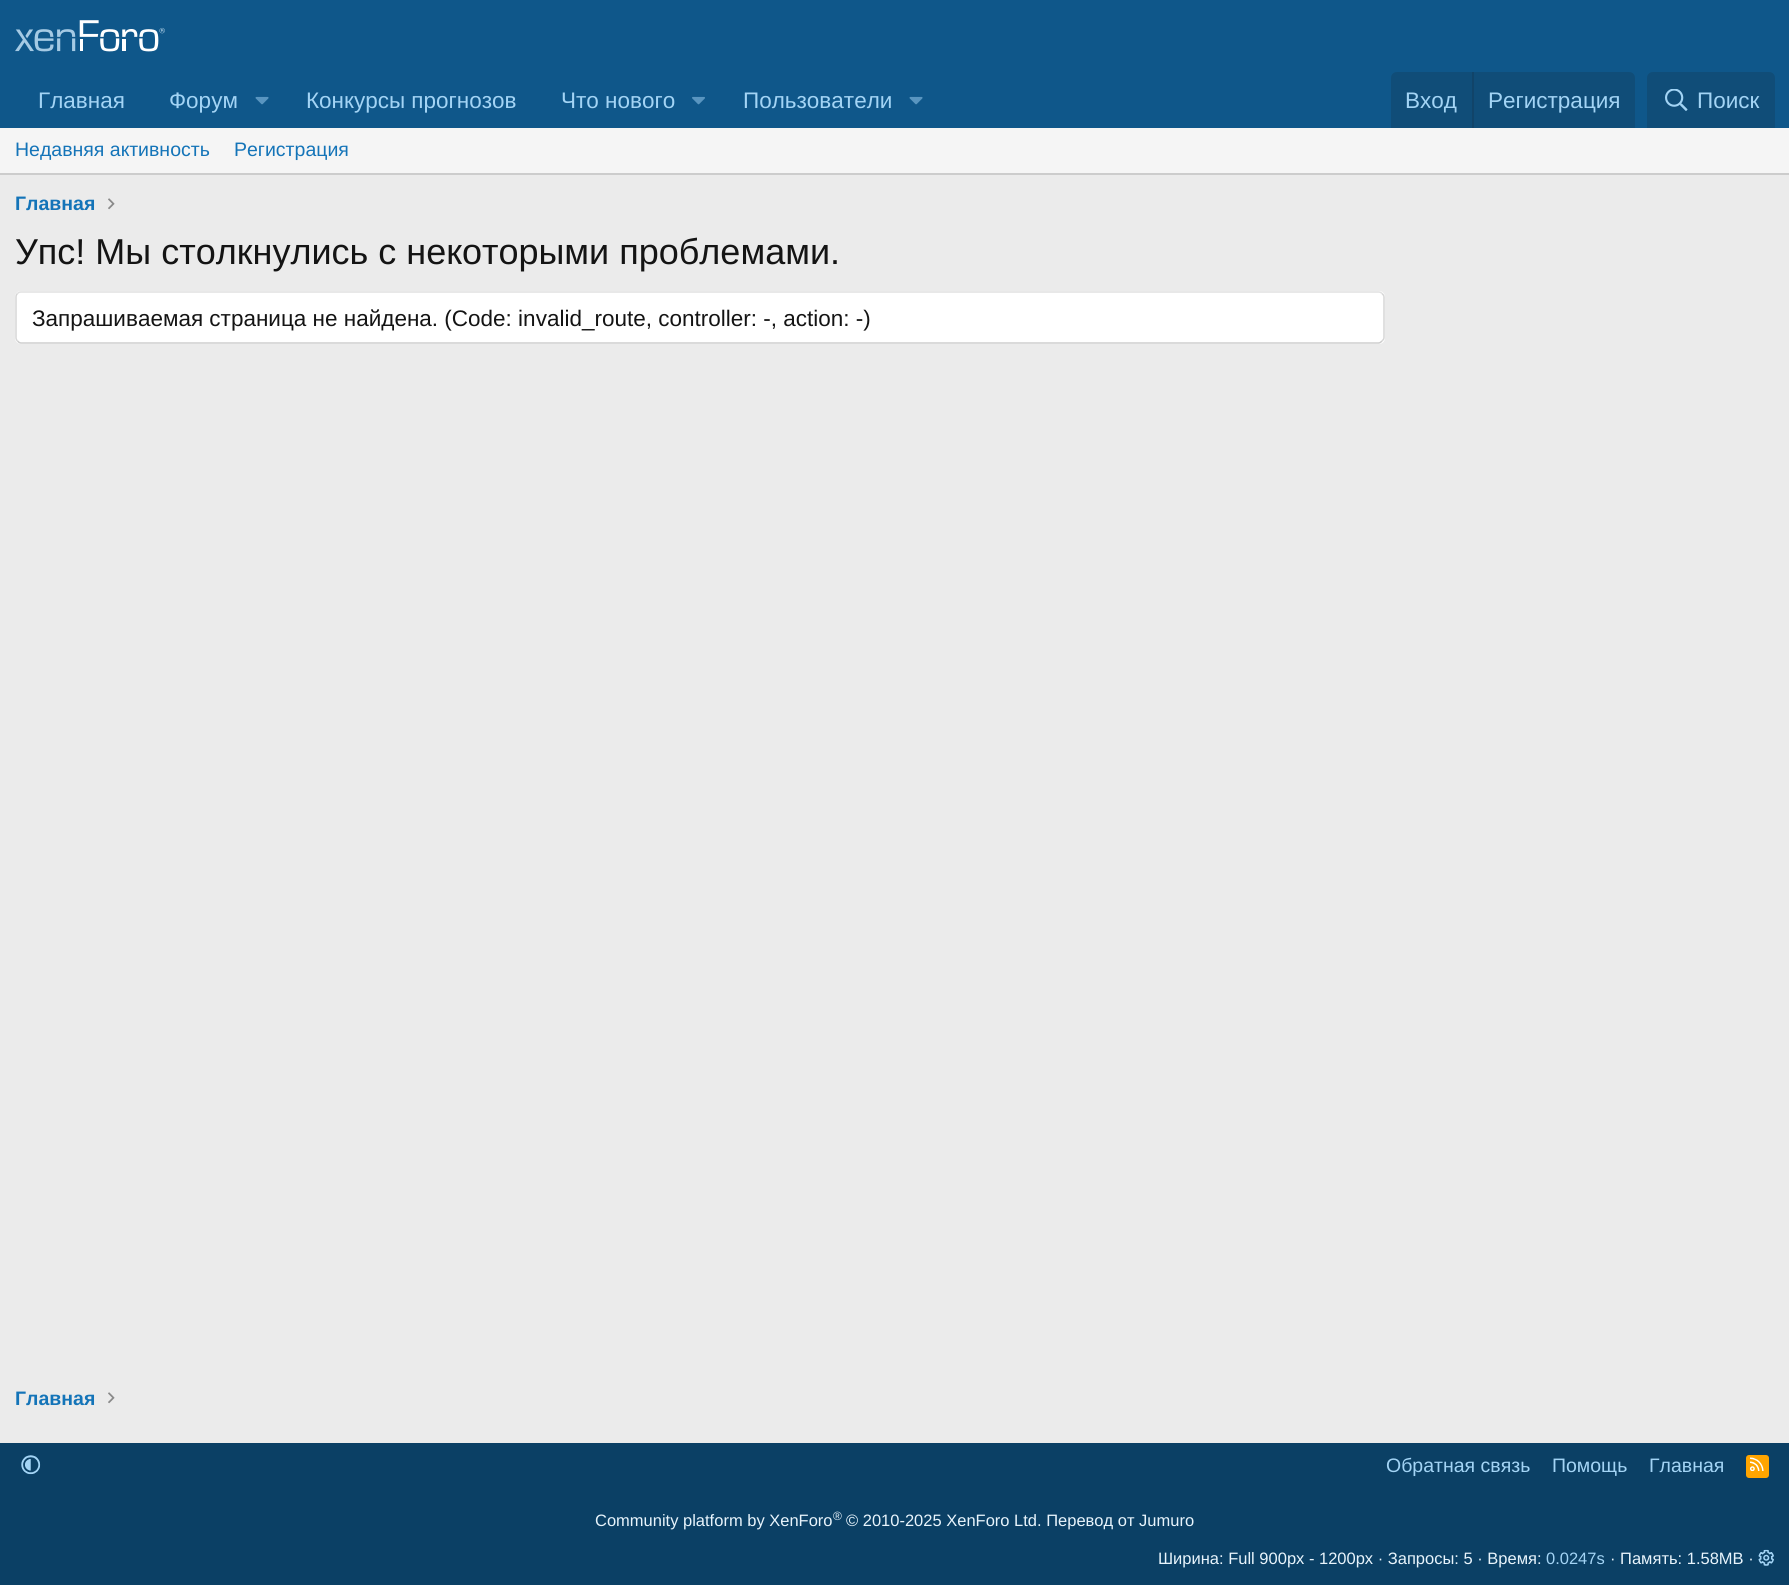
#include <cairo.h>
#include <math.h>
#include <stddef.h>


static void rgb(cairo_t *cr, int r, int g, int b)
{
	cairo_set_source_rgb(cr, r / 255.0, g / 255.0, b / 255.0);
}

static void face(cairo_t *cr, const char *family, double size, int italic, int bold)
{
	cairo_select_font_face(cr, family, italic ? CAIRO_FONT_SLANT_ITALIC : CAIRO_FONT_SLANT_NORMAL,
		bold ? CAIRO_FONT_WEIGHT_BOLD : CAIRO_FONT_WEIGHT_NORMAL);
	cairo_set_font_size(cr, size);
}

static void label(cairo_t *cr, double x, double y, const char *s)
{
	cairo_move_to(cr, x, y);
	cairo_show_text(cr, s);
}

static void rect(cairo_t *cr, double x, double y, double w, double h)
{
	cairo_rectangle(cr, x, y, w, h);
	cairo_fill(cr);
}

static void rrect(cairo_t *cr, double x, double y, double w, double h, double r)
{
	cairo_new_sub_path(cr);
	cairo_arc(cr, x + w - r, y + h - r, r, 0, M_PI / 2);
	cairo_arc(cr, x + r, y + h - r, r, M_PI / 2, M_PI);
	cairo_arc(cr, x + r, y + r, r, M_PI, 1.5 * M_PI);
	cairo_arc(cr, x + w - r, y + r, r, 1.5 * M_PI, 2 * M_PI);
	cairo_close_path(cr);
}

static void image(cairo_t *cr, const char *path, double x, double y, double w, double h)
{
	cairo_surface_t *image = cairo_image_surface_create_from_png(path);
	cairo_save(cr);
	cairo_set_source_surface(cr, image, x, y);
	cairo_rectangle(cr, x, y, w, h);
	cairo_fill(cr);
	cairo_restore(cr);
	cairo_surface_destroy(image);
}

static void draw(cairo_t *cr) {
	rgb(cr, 235, 235, 235);
	cairo_paint(cr);
	rgb(cr, 15, 87, 138);
	rect(cr, 0, 0, 1789, 128);
	image(cr, "image0.png", 15, 20, 150, 32);
	face(cr, "Liberation Sans", 22.5, 0, 0);
	rgb(cr, 163, 212, 245);
	label(cr, 38, 108, "Главная");
	label(cr, 169, 108, "Форум");
	image(cr, "image1.png", 255, 96, 14, 9);
	label(cr, 306, 108, "Конкурсы прогнозов");
	label(cr, 561, 108, "Что нового");
	image(cr, "image2.png", 692, 96, 13, 9);
	label(cr, 743, 108, "Пользователи");
	image(cr, "image1.png", 909, 96, 14, 9);
	rgb(cr, 16, 77, 120);
	cairo_new_path(cr);
	cairo_move_to(cr, 1397, 72);
	cairo_line_to(cr, 1629, 72);
	cairo_curve_to(cr, 1632.5, 72, 1635, 74.5, 1635, 78);
	cairo_line_to(cr, 1635, 128);
	cairo_line_to(cr, 1391, 128);
	cairo_line_to(cr, 1391, 78);
	cairo_curve_to(cr, 1391, 74.5, 1393.5, 72, 1397, 72);
	cairo_close_path(cr);
	cairo_fill(cr);
	rgb(cr, 163, 212, 245);
	label(cr, 1405, 108, "Вход");
	rgb(cr, 17, 68, 105);
	rect(cr, 1472, 72, 2, 56);
	rgb(cr, 163, 212, 245);
	label(cr, 1488, 108, "Регистрация");
	rgb(cr, 16, 77, 120);
	cairo_new_path(cr);
	cairo_move_to(cr, 1653, 72);
	cairo_line_to(cr, 1769, 72);
	cairo_curve_to(cr, 1772.5, 72, 1775, 74.5, 1775, 78);
	cairo_line_to(cr, 1775, 128);
	cairo_line_to(cr, 1647, 128);
	cairo_line_to(cr, 1647, 78);
	cairo_curve_to(cr, 1647, 74.5, 1649.5, 72, 1653, 72);
	cairo_close_path(cr);
	cairo_fill(cr);
	image(cr, "image3.png", 1665, 89, 23, 22);
	rgb(cr, 163, 212, 245);
	label(cr, 1697, 108, "Поиск");
	rgb(cr, 245, 245, 245);
	rect(cr, 0, 128, 1789, 45);
	rgb(cr, 204, 204, 204);
	rect(cr, 0, 173, 1789, 2);
	face(cr, "Liberation Sans", 19.5, 0, 0);
	rgb(cr, 20, 116, 184);
	label(cr, 15, 156, "Недавняя активность");
	label(cr, 234, 156, "Регистрация");
	face(cr, "Liberation Sans", 19.5, 0, 1);
	label(cr, 15, 210, "Главная");
	image(cr, "image4.png", 108, 198, 7, 12);
	face(cr, "Liberation Sans", 36, 0, 0);
	rgb(cr, 20, 20, 20);
	label(cr, 15, 264, "Упс! Мы столкнулись с некоторыми проблемами.");
	rgb(cr, 255, 255, 255);
	rrect(cr, 15, 291, 1370, 53, 6);
	cairo_fill(cr);
	cairo_new_path(cr);
	cairo_move_to(cr, 17.5, 293.5);
	cairo_curve_to(cr, 18.5, 292.5, 19.5, 292, 21, 292);
	cairo_line_to(cr, 1378.5, 292);
	cairo_curve_to(cr, 1380, 292, 1381, 292.5, 1382, 293.5);
	rgb(cr, 224, 224, 224);
	cairo_set_line_width(cr, 1.5);
	cairo_stroke(cr);
	cairo_new_path(cr);
	cairo_move_to(cr, 1382, 293.5);
	cairo_curve_to(cr, 1383, 294.5, 1384, 295.5, 1384, 297);
	cairo_line_to(cr, 1384, 337.5);
	cairo_curve_to(cr, 1384, 339, 1383, 340, 1382, 341);
	rgb(cr, 214, 214, 214);
	cairo_stroke(cr);
	cairo_new_path(cr);
	cairo_move_to(cr, 1382, 341);
	cairo_curve_to(cr, 1381, 342, 1380, 343, 1378.5, 343);
	cairo_line_to(cr, 21, 343);
	cairo_curve_to(cr, 19.5, 343, 18.5, 342, 17.5, 341);
	rgb(cr, 204, 204, 204);
	cairo_stroke(cr);
	cairo_new_path(cr);
	cairo_move_to(cr, 17.5, 341);
	cairo_curve_to(cr, 16.5, 340, 16, 339, 16, 337.5);
	cairo_line_to(cr, 16, 297);
	cairo_curve_to(cr, 16, 295.5, 16.5, 294.5, 17.5, 293.5);
	rgb(cr, 214, 214, 214);
	cairo_stroke(cr);
	face(cr, "Liberation Sans", 22.5, 0, 0);
	rgb(cr, 20, 20, 20);
	label(cr, 32, 326, "Запрашиваемая страница не найдена. (Code: invalid_route, controller: -, action: -)");
	face(cr, "Liberation Sans", 19.5, 0, 1);
	rgb(cr, 20, 116, 184);
	label(cr, 15, 1405, "Главная");
	image(cr, "image4.png", 108, 1392, 7, 12);
	rgb(cr, 11, 64, 101);
	rect(cr, 0, 1443, 1789, 142);
	image(cr, "image5.png", 21, 1455, 20, 20);
	face(cr, "Liberation Sans", 19.5, 0, 0);
	rgb(cr, 163, 212, 245);
	label(cr, 1386, 1472, "Обратная связь");
	label(cr, 1552, 1472, "Помощь");
	label(cr, 1649, 1472, "Главная");
	rgb(cr, 255, 165, 0);
	rrect(cr, 1746, 1455, 23, 23, 3);
	cairo_fill(cr);
	image(cr, "image6.png", 1750, 1457, 14, 14);
	face(cr, "Liberation Sans", 16.5, 0, 0);
	rgb(cr, 232, 244, 252);
	label(cr, 595, 1526, "Community platform by XenForo");
	face(cr, "Liberation Sans", 12, 0, 0);
	label(cr, 833, 1520, "®");
	face(cr, "Liberation Sans", 16.5, 0, 0);
	label(cr, 846, 1526, "© 2010-2025 XenForo Ltd. Перевод от Jumuro");
	label(cr, 1158, 1564, "Ширина: Full 900px - 1200px · Запросы: 5 · Время:");
	rgb(cr, 163, 212, 245);
	label(cr, 1546, 1564, "0.0247s");
	rgb(cr, 232, 244, 252);
	label(cr, 1610, 1564, "· Память: 1.58MB ·");
	image(cr, "image7.png", 1758, 1549, 16, 17);
}

int main(void) {
	cairo_surface_t *surface = cairo_image_surface_create(CAIRO_FORMAT_RGB24, 1789, 1585);
	cairo_t *cr = cairo_create(surface);
	cairo_font_options_t *options = cairo_font_options_create();
	cairo_font_options_set_hint_metrics(options, CAIRO_HINT_METRICS_OFF);
	cairo_font_options_set_hint_style(options, CAIRO_HINT_STYLE_NONE);
	cairo_set_font_options(cr, options);
	cairo_set_miter_limit(cr, 4);
	draw(cr);
	cairo_surface_write_to_png(surface, "render.png");
	cairo_font_options_destroy(options);
	cairo_destroy(cr);
	cairo_surface_destroy(surface);
	return 0;
}
